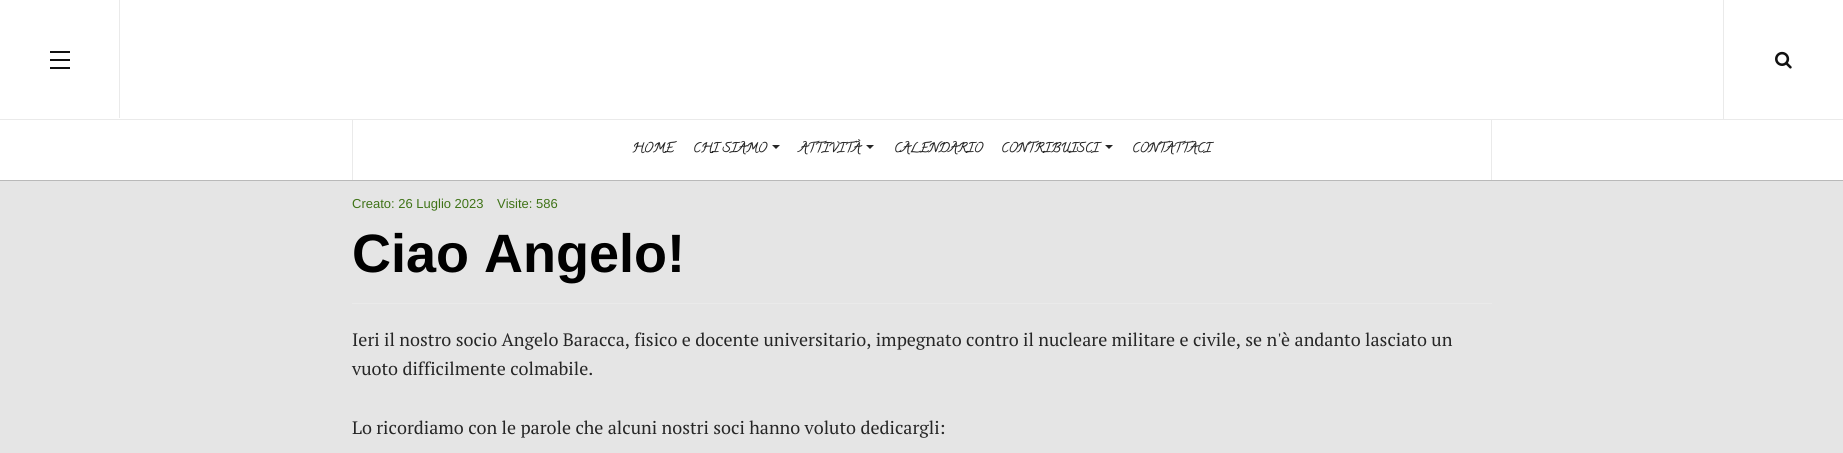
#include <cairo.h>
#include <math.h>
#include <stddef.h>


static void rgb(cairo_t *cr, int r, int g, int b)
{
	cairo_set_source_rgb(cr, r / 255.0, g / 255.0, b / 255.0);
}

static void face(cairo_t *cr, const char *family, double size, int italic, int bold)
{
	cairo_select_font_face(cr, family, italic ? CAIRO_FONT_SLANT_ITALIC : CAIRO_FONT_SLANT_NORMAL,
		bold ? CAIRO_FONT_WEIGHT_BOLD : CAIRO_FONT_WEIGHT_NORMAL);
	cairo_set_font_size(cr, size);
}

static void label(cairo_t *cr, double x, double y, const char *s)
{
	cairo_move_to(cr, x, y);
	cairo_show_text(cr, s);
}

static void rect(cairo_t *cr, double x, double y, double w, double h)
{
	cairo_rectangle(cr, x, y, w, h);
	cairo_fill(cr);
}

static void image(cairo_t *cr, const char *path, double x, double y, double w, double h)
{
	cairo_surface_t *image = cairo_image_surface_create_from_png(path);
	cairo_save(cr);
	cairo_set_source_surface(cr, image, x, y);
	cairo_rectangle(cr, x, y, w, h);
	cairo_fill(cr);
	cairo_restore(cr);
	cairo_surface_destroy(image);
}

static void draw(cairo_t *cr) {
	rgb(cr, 229, 229, 229);
	cairo_paint(cr);
	rgb(cr, 255, 255, 255);
	rect(cr, 0, 0, 1843, 180);
	rgb(cr, 234, 234, 234);
	rect(cr, 0, 119, 1843, 1);
	rect(cr, 119, 0, 1, 118);
	rgb(cr, 17, 17, 17);
	rect(cr, 50, 59, 20, 2);
	rect(cr, 50, 51, 20, 2);
	rect(cr, 50, 67, 20, 2);
	rgb(cr, 234, 234, 234);
	rect(cr, 1723, 0, 1, 119);
	image(cr, "image0.png", 1775, 51, 17, 18);
	rgb(cr, 185, 185, 185);
	rect(cr, 0, 180, 1843, 1);
	rgb(cr, 234, 234, 234);
	rect(cr, 1491, 120, 1, 60);
	rect(cr, 352, 120, 1, 60);
	face(cr, "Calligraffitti", 13, 0, 1);
	rgb(cr, 38, 38, 38);
	label(cr, 632, 152, "HOME");
	label(cr, 693, 152, "CHI SIAMO");
	cairo_new_path(cr);
	cairo_move_to(cr, 772, 145);
	cairo_line_to(cr, 780, 145);
	cairo_line_to(cr, 776, 149);
	cairo_close_path(cr);
	cairo_fill(cr);
	label(cr, 799, 152, "ATTIVITÀ");
	cairo_new_path(cr);
	cairo_move_to(cr, 866, 145);
	cairo_line_to(cr, 874, 145);
	cairo_line_to(cr, 870, 149);
	cairo_close_path(cr);
	cairo_fill(cr);
	label(cr, 894, 152, "CALENDARIO");
	label(cr, 1001, 152, "CONTRIBUISCI");
	cairo_new_path(cr);
	cairo_move_to(cr, 1105, 145);
	cairo_line_to(cr, 1113, 145);
	cairo_line_to(cr, 1109, 149);
	cairo_close_path(cr);
	cairo_fill(cr);
	label(cr, 1132, 152, "CONTATTACI");
	face(cr, "Liberation Sans", 13, 0, 0);
	rgb(cr, 63, 115, 23);
	label(cr, 352, 208, "Creato: 26 Luglio 2023");
	label(cr, 497, 208, "Visite: 586");
	rgb(cr, 234, 234, 234);
	rect(cr, 352, 303, 1140, 1);
	face(cr, "Liberation Sans", 54, 0, 1);
	rgb(cr, 0, 0, 0);
	label(cr, 352, 272, "Ciao Angelo!");
	face(cr, "PT Serif", 18, 0, 0);
	rgb(cr, 38, 38, 38);
	label(cr, 352, 346, "Ieri il nostro socio Angelo Baracca, fisico e docente universitario, impegnato contro il nucleare militare e civile, se n'è andanto lasciato un");
	label(cr, 352, 375, "vuoto difficilmente colmabile.");
	label(cr, 352, 434, "Lo ricordiamo con le parole che alcuni nostri soci hanno voluto dedicargli:");
}

int main(void) {
	cairo_surface_t *surface = cairo_image_surface_create(CAIRO_FORMAT_RGB24, 1843, 453);
	cairo_t *cr = cairo_create(surface);
	cairo_font_options_t *options = cairo_font_options_create();
	cairo_font_options_set_hint_metrics(options, CAIRO_HINT_METRICS_OFF);
	cairo_font_options_set_hint_style(options, CAIRO_HINT_STYLE_NONE);
	cairo_set_font_options(cr, options);
	cairo_set_miter_limit(cr, 4);
	draw(cr);
	cairo_surface_write_to_png(surface, "render.png");
	cairo_font_options_destroy(options);
	cairo_destroy(cr);
	cairo_surface_destroy(surface);
	return 0;
}
